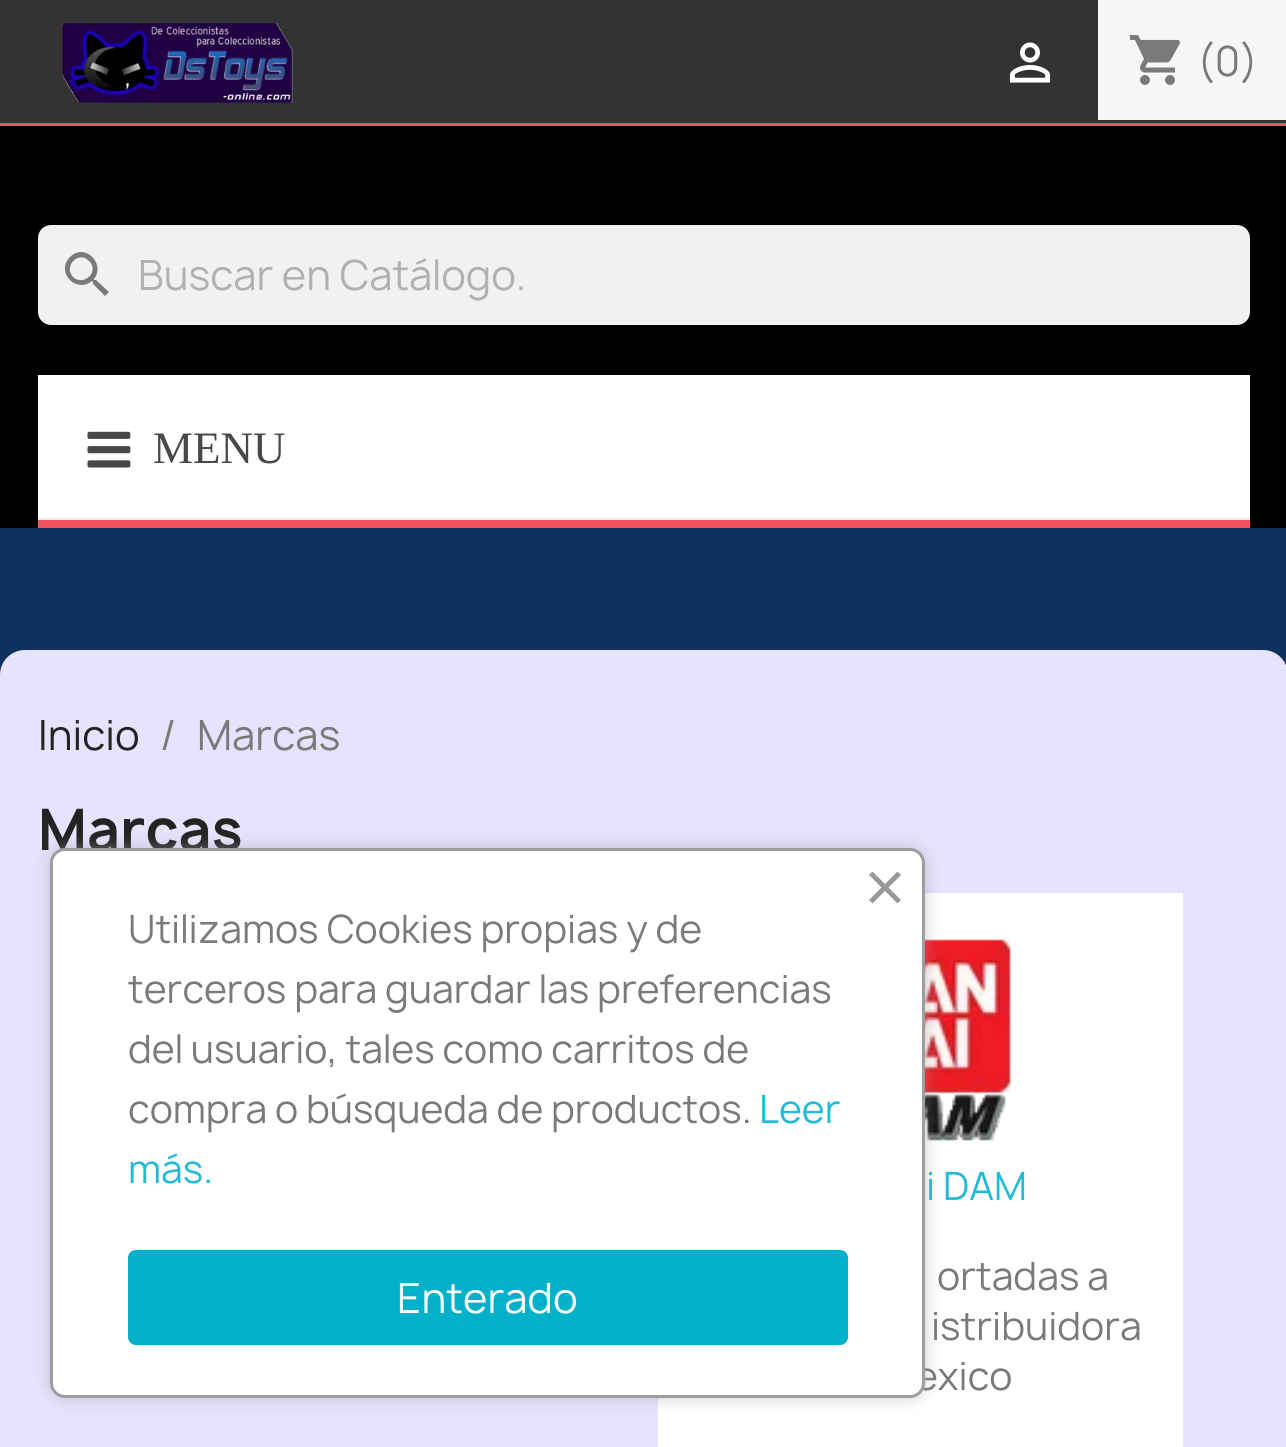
#include <cairo.h>
#include <math.h>
#include <stddef.h>


static void rgb(cairo_t *cr, int r, int g, int b)
{
	cairo_set_source_rgb(cr, r / 255.0, g / 255.0, b / 255.0);
}

static void face(cairo_t *cr, const char *family, double size, int italic, int bold)
{
	cairo_select_font_face(cr, family, italic ? CAIRO_FONT_SLANT_ITALIC : CAIRO_FONT_SLANT_NORMAL,
		bold ? CAIRO_FONT_WEIGHT_BOLD : CAIRO_FONT_WEIGHT_NORMAL);
	cairo_set_font_size(cr, size);
}

static void label(cairo_t *cr, double x, double y, const char *s)
{
	cairo_move_to(cr, x, y);
	cairo_show_text(cr, s);
}

static void rect(cairo_t *cr, double x, double y, double w, double h)
{
	cairo_rectangle(cr, x, y, w, h);
	cairo_fill(cr);
}

static void rrect(cairo_t *cr, double x, double y, double w, double h, double r)
{
	cairo_new_sub_path(cr);
	cairo_arc(cr, x + w - r, y + h - r, r, 0, M_PI / 2);
	cairo_arc(cr, x + r, y + h - r, r, M_PI / 2, M_PI);
	cairo_arc(cr, x + r, y + r, r, M_PI, 1.5 * M_PI);
	cairo_arc(cr, x + w - r, y + r, r, 1.5 * M_PI, 2 * M_PI);
	cairo_close_path(cr);
}

static void soft_shadow(cairo_t *cr, double x, double y, double w, double h, double r, double blur, double alpha)
{
	cairo_push_group_with_content(cr, CAIRO_CONTENT_ALPHA);
	cairo_set_operator(cr, CAIRO_OPERATOR_SOURCE);
	for (int i = 15; i >= -15 && fmin(w, h) + blur * i / 3 > 0; i -= 2) {
		double e = blur * i / 6;
		cairo_set_source_rgba(cr, 0, 0, 0, alpha * erfc((i - 1) / 8.5) / 2);
		rrect(cr, x - e, y - e, w + 2 * e, h + 2 * e, fmax(0, fmin(r + e + blur * .6, fmin(w, h) / 2 + e)));
		cairo_fill(cr);
	}
	cairo_pattern_t *soft = cairo_pop_group(cr);
	cairo_mask(cr, soft);
	cairo_pattern_destroy(soft);
}

static void image(cairo_t *cr, const char *path, double x, double y, double w, double h)
{
	cairo_surface_t *image = cairo_image_surface_create_from_png(path);
	cairo_save(cr);
	cairo_set_source_surface(cr, image, x, y);
	cairo_rectangle(cr, x, y, w, h);
	cairo_fill(cr);
	cairo_restore(cr);
	cairo_surface_destroy(image);
}

static void draw(cairo_t *cr) {
	rgb(cr, 0, 0, 0);
	cairo_paint(cr);
	rgb(cr, 51, 51, 51);
	rect(cr, 0, 0, 1286, 123);
	rgb(cr, 243, 81, 92);
	rect(cr, 0, 123, 1286, 3);
	image(cr, "image0.png", 62, 23, 231, 80);
	image(cr, "image1.png", 1009, 42, 42, 41);
	rgb(cr, 246, 246, 246);
	rect(cr, 1098, 0, 188, 120);
	image(cr, "image2.png", 1129, 35, 51, 50);
	face(cr, "Manrope", 40, 0, 0);
	rgb(cr, 122, 122, 122);
	label(cr, 1197, 76, "(0)");
	rgb(cr, 241, 241, 241);
	rrect(cr, 38, 225, 1212, 100, 13);
	cairo_fill(cr);
	rgb(cr, 122, 122, 122);
	cairo_new_path(cr);
	cairo_move_to(cr, 73, 277);
	cairo_curve_to(cr, 84, 287, 100, 271, 89, 261);
	cairo_curve_to(cr, 79, 250, 63, 266, 73, 277);
	cairo_close_path(cr);
	cairo_move_to(cr, 96, 280);
	cairo_line_to(cr, 109, 292);
	cairo_line_to(cr, 105, 296);
	cairo_line_to(cr, 93, 284);
	cairo_line_to(cr, 93, 282);
	cairo_line_to(cr, 92, 281);
	cairo_curve_to(cr, 76, 294, 55, 272, 70, 257);
	cairo_curve_to(cr, 85, 242, 106, 264, 94, 279);
	cairo_line_to(cr, 94, 280);
	cairo_close_path(cr);
	cairo_fill(cr);
	rgb(cr, 177, 177, 177);
	label(cr, 138, 290, "Buscar en Catálogo.");
	rgb(cr, 255, 255, 255);
	rect(cr, 38, 375, 1212, 143);
	rgb(cr, 233, 233, 233);
	rect(cr, 38, 518, 1212, 2);
	image(cr, "image3.png", 87, 431, 44, 37);
	face(cr, "Liberation Serif", 45, 0, 0);
	rgb(cr, 72, 72, 72);
	label(cr, 153, 463, "MENU");
	rgb(cr, 243, 81, 92);
	rect(cr, 38, 520, 1212, 8);
	rgb(cr, 15, 49, 95);
	rect(cr, 0, 528, 1286, 147);
	rgb(cr, 229, 227, 253);
	rrect(cr, 0, 650, 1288, 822, 25);
	cairo_fill(cr);
	face(cr, "Manrope", 40, 0, 0);
	rgb(cr, 35, 35, 35);
	label(cr, 38, 750, "Inicio");
	rgb(cr, 122, 122, 122);
	label(cr, 160, 750, "/");
	label(cr, 197, 750, "Marcas");
	face(cr, "Manrope", 55, 0, 1);
	rgb(cr, 35, 35, 35);
	label(cr, 38, 850, "Marcas");
	rgb(cr, 255, 255, 255);
	rect(cr, 658, 893, 525, 554);
	image(cr, "image4.png", 925, 939, 86, 202);
	face(cr, "Manrope", 37.5, 0, 0);
	rgb(cr, 36, 185, 215);
	label(cr, 926, 1200, "i DAM");
	rgb(cr, 122, 122, 122);
	label(cr, 937, 1290, "ortadas a");
	label(cr, 931, 1340, "istribuidora");
	label(cr, 915, 1390, "exico");
	rgb(cr, 158, 158, 158);
	soft_shadow(cr, 55, 853, 865, 540, 10, 9, 1);
	rgb(cr, 255, 255, 255);
	rrect(cr, 51.5, 849.5, 872, 547, 13.5);
	cairo_fill_preserve(cr);
	rgb(cr, 158, 158, 158);
	cairo_set_line_width(cr, 3);
	cairo_stroke(cr);
	rgb(cr, 153, 153, 153);
	cairo_new_path(cr);
	cairo_move_to(cr, 869, 900);
	cairo_line_to(cr, 897.5, 871.5);
	cairo_line_to(cr, 901, 875);
	cairo_line_to(cr, 872.5, 903.5);
	cairo_close_path(cr);
	cairo_fill(cr);
	cairo_new_path(cr);
	cairo_move_to(cr, 872.5, 871.5);
	cairo_line_to(cr, 901, 900);
	cairo_line_to(cr, 897.5, 903.5);
	cairo_line_to(cr, 869, 875);
	cairo_close_path(cr);
	cairo_fill(cr);
	rgb(cr, 122, 122, 122);
	label(cr, 128, 943, "Utilizamos Cookies propias y de");
	label(cr, 128, 1003, "terceros para guardar las preferencias");
	label(cr, 128, 1063, "del usuario, tales como carritos de");
	label(cr, 128, 1123, "compra o búsqueda de productos.");
	rgb(cr, 36, 185, 215);
	label(cr, 759, 1123, "Leer");
	label(cr, 128, 1183, "más.");
	rgb(cr, 0, 177, 201);
	rrect(cr, 129.5, 1251.5, 717, 92, 6.5);
	cairo_fill_preserve(cr);
	cairo_stroke(cr);
	face(cr, "Manrope", 40, 0, 0);
	rgb(cr, 255, 255, 255);
	label(cr, 397, 1313, "Enterado");
}

int main(void) {
	cairo_surface_t *surface = cairo_image_surface_create(CAIRO_FORMAT_RGB24, 1286, 1447);
	cairo_t *cr = cairo_create(surface);
	cairo_font_options_t *options = cairo_font_options_create();
	cairo_font_options_set_hint_metrics(options, CAIRO_HINT_METRICS_OFF);
	cairo_font_options_set_hint_style(options, CAIRO_HINT_STYLE_NONE);
	cairo_set_font_options(cr, options);
	cairo_set_miter_limit(cr, 4);
	draw(cr);
	cairo_surface_write_to_png(surface, "render.png");
	cairo_font_options_destroy(options);
	cairo_destroy(cr);
	cairo_surface_destroy(surface);
	return 0;
}
